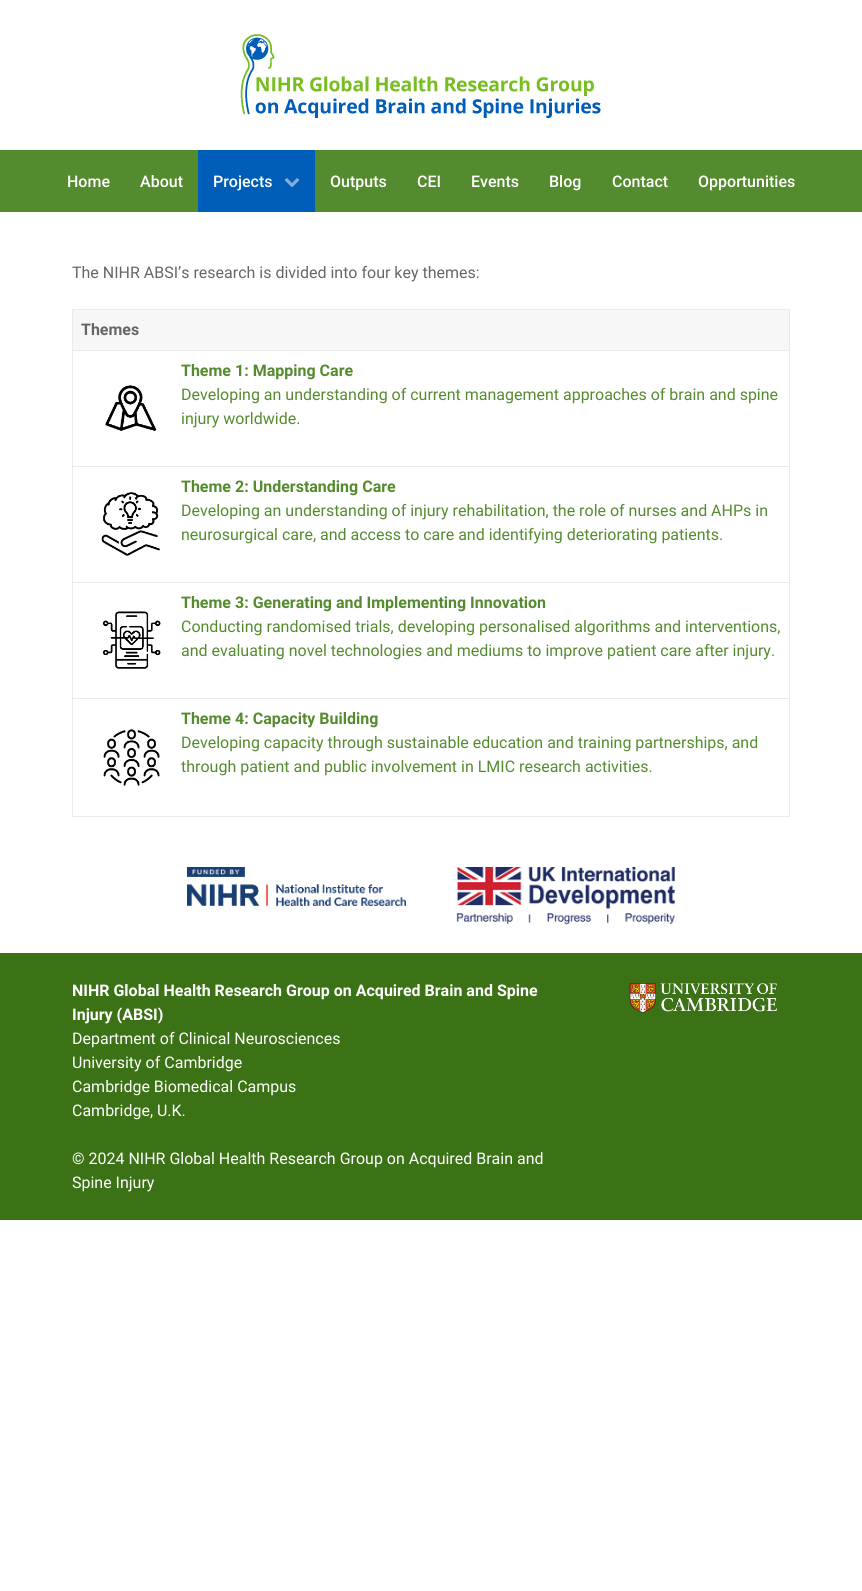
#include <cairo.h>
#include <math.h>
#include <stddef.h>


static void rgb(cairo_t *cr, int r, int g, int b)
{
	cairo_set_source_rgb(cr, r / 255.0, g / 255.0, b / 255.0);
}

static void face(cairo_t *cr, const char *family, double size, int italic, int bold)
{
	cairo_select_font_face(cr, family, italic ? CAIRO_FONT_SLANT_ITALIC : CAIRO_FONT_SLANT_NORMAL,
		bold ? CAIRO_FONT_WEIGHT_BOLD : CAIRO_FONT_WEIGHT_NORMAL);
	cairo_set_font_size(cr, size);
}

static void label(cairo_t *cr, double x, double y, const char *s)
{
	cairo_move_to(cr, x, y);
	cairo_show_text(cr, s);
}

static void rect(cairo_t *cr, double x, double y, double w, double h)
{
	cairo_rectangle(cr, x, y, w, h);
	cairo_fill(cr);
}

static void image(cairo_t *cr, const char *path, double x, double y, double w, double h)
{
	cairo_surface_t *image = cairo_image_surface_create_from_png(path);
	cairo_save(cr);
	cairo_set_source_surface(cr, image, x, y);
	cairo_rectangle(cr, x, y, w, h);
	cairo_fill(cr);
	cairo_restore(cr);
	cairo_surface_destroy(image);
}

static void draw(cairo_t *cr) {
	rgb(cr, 255, 255, 255);
	cairo_paint(cr);
	image(cr, "image0.png", 240, 34, 361, 84);
	rgb(cr, 85, 139, 47);
	rect(cr, 0, 150, 862, 62);
	face(cr, "Roboto Medium", 16, 0, 0);
	rgb(cr, 255, 255, 255);
	label(cr, 67, 187, "Home");
	label(cr, 140, 187, "About");
	rgb(cr, 0, 94, 184);
	rect(cr, 198, 150, 117, 62);
	rgb(cr, 255, 255, 255);
	label(cr, 213, 187, "Projects");
	image(cr, "image1.png", 284, 178, 16, 10);
	label(cr, 330, 187, "Outputs");
	label(cr, 417, 187, "CEI");
	label(cr, 471, 187, "Events");
	label(cr, 549, 187, "Blog");
	label(cr, 612, 187, "Contact");
	label(cr, 698, 187, "Opportunities");
	face(cr, "Roboto", 16, 0, 0);
	rgb(cr, 102, 102, 102);
	label(cr, 72, 278, "The NIHR ABSI’s research is divided into four key themes:");
	rgb(cr, 234, 234, 234);
	rect(cr, 72, 309, 718, 1);
	rect(cr, 789, 309, 1, 508);
	rect(cr, 72, 816, 718, 1);
	rect(cr, 72, 309, 1, 508);
	rgb(cr, 247, 247, 247);
	rect(cr, 73, 310, 716, 40);
	face(cr, "Roboto", 16, 0, 1);
	rgb(cr, 102, 102, 102);
	label(cr, 81, 335, "Themes");
	rgb(cr, 234, 234, 234);
	rect(cr, 72, 350, 718, 1);
	rgb(cr, 85, 139, 47);
	label(cr, 181, 376, "Theme 1: Mapping Care");
	image(cr, "image2.png", 105, 385, 52, 46);
	face(cr, "Roboto", 16, 0, 0);
	label(cr, 181, 400, "Developing an understanding of current management approaches of brain and spine");
	label(cr, 181, 424, "injury worldwide.");
	rgb(cr, 234, 234, 234);
	rect(cr, 72, 466, 718, 1);
	face(cr, "Roboto", 16, 0, 1);
	rgb(cr, 85, 139, 47);
	label(cr, 181, 492, "Theme 2: Understanding Care");
	image(cr, "image3.png", 101, 492, 59, 64);
	face(cr, "Roboto", 16, 0, 0);
	label(cr, 181, 516, "Developing an understanding of injury rehabilitation, the role of nurses and AHPs in");
	label(cr, 181, 540, "neurosurgical care, and access to care and identifying deteriorating patients.");
	rgb(cr, 234, 234, 234);
	rect(cr, 72, 582, 718, 1);
	face(cr, "Roboto", 16, 0, 1);
	rgb(cr, 85, 139, 47);
	label(cr, 181, 608, "Theme 3: Generating and Implementing Innovation");
	image(cr, "image4.png", 102, 611, 59, 58);
	face(cr, "Roboto", 16, 0, 0);
	label(cr, 181, 632, "Conducting randomised trials, developing personalised algorithms and interventions,");
	label(cr, 181, 656, "and evaluating novel technologies and mediums to improve patient care after injury.");
	rgb(cr, 234, 234, 234);
	rect(cr, 72, 698, 718, 1);
	face(cr, "Roboto", 16, 0, 1);
	rgb(cr, 85, 139, 47);
	label(cr, 181, 724, "Theme 4: Capacity Building");
	image(cr, "image5.png", 103, 729, 57, 57);
	face(cr, "Roboto", 16, 0, 0);
	label(cr, 181, 748, "Developing capacity through sustainable education and training partnerships, and");
	label(cr, 181, 772, "through patient and public involvement in LMIC research activities.");
	image(cr, "image6.png", 187, 867, 219, 39);
	image(cr, "image7.png", 456, 867, 219, 58);
	rgb(cr, 60, 114, 22);
	rect(cr, 0, 954, 862, 266);
	rgb(cr, 57, 108, 21);
	rect(cr, 0, 953, 862, 1);
	face(cr, "Roboto", 16, 0, 1);
	rgb(cr, 255, 255, 255);
	label(cr, 72, 996, "NIHR Global Health Research Group on Acquired Brain and Spine");
	label(cr, 72, 1020, "Injury (ABSI)");
	face(cr, "Roboto", 16, 0, 0);
	label(cr, 72, 1044, "Department of Clinical Neurosciences");
	label(cr, 72, 1068, "University of Cambridge");
	label(cr, 72, 1092, "Cambridge Biomedical Campus");
	label(cr, 72, 1116, "Cambridge, U.K.");
	label(cr, 72, 1164, "© 2024 NIHR Global Health Research Group on Acquired Brain and");
	label(cr, 72, 1188, "Spine Injury");
	image(cr, "image8.png", 629, 983, 148, 30);
}

int main(void) {
	cairo_surface_t *surface = cairo_image_surface_create(CAIRO_FORMAT_RGB24, 862, 1591);
	cairo_t *cr = cairo_create(surface);
	cairo_font_options_t *options = cairo_font_options_create();
	cairo_font_options_set_hint_metrics(options, CAIRO_HINT_METRICS_OFF);
	cairo_font_options_set_hint_style(options, CAIRO_HINT_STYLE_NONE);
	cairo_set_font_options(cr, options);
	cairo_set_miter_limit(cr, 4);
	draw(cr);
	cairo_surface_write_to_png(surface, "render.png");
	cairo_font_options_destroy(options);
	cairo_destroy(cr);
	cairo_surface_destroy(surface);
	return 0;
}
